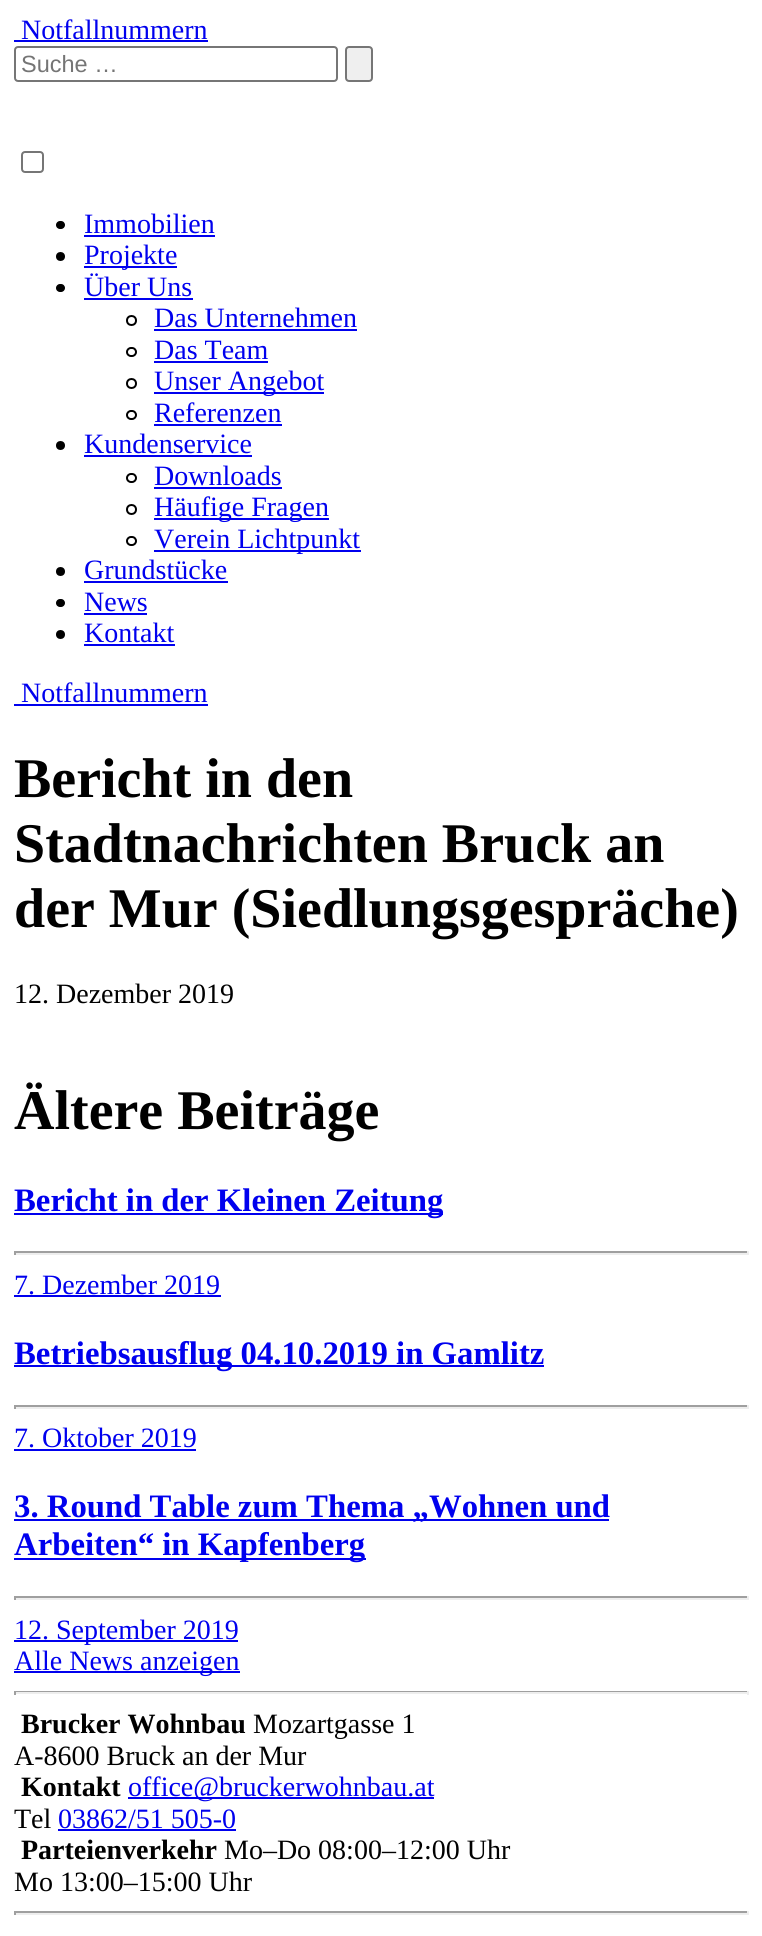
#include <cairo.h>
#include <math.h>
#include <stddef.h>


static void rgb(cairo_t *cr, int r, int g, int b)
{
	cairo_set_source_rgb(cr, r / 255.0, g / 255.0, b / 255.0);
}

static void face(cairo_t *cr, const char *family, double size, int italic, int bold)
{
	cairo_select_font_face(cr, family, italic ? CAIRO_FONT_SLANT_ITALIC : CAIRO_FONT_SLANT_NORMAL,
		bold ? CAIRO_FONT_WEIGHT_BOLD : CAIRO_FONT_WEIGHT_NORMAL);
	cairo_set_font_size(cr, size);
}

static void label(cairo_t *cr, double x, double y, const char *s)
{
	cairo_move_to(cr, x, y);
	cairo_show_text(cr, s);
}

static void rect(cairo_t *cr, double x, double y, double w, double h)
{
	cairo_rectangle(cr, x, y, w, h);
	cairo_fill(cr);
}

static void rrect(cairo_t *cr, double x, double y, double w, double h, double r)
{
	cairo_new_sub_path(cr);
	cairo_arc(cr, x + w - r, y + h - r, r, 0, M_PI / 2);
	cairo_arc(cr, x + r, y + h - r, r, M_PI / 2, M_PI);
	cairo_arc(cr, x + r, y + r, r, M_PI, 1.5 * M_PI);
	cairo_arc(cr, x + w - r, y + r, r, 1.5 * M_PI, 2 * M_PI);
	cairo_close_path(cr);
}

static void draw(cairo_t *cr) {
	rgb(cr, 255, 255, 255);
	cairo_paint(cr);
	face(cr, "Liberation Serif", 28, 0, 0);
	rgb(cr, 0, 0, 238);
	label(cr, 21, 39, "Notfallnummern");
	rect(cr, 14, 40, 194, 2);
	rrect(cr, 15, 47, 322, 34, 3);
	rgb(cr, 118, 118, 118);
	cairo_stroke(cr);
	face(cr, "Liberation Sans", 23.5, 0, 0);
	rgb(cr, 117, 117, 117);
	label(cr, 21, 72, "Suche …");
	rgb(cr, 239, 239, 239);
	rrect(cr, 346, 47, 26, 34, 3);
	cairo_fill_preserve(cr);
	rgb(cr, 118, 118, 118);
	cairo_stroke(cr);
	rrect(cr, 22, 152, 21, 20, 3);
	cairo_stroke(cr);
	rgb(cr, 0, 0, 0);
	rrect(cr, 56, 221, 9, 8, 4);
	cairo_fill(cr);
	face(cr, "Liberation Serif", 28, 0, 0);
	rgb(cr, 0, 0, 238);
	label(cr, 84, 233, "Immobilien");
	rect(cr, 84, 235, 131, 2);
	rgb(cr, 0, 0, 0);
	cairo_new_path(cr);
	cairo_arc(cr, 60.5, 256.5, 4.5, 0, 2 * M_PI);
	cairo_fill(cr);
	rgb(cr, 0, 0, 238);
	rect(cr, 84, 266, 93, 2);
	label(cr, 84, 264, "Projekte");
	rgb(cr, 0, 0, 0);
	rrect(cr, 56, 284, 9, 8, 4);
	cairo_fill(cr);
	rgb(cr, 0, 0, 238);
	label(cr, 84, 296, "Über Uns");
	rect(cr, 84, 298, 109, 2);
	cairo_new_path(cr);
	cairo_arc(cr, 131.5, 320.5, 4.5, 0, 2 * M_PI);
	rgb(cr, 0, 0, 0);
	cairo_stroke(cr);
	rgb(cr, 0, 0, 238);
	label(cr, 154, 327, "Das Unternehmen");
	rect(cr, 154, 329, 203, 2);
	rrect(cr, 127, 348, 9, 8, 4);
	rgb(cr, 0, 0, 0);
	cairo_stroke(cr);
	rgb(cr, 0, 0, 238);
	label(cr, 154, 359, "Das Team");
	rect(cr, 154, 361, 114, 2);
	cairo_new_path(cr);
	cairo_arc(cr, 131.5, 383.5, 4.5, 0, 2 * M_PI);
	rgb(cr, 0, 0, 0);
	cairo_stroke(cr);
	rgb(cr, 0, 0, 238);
	rect(cr, 154, 392, 170, 2);
	label(cr, 154, 390, "Unser Angebot");
	rrect(cr, 127, 411, 9, 8, 4);
	rgb(cr, 0, 0, 0);
	cairo_stroke(cr);
	rgb(cr, 0, 0, 238);
	label(cr, 154, 422, "Referenzen");
	rect(cr, 154, 424, 128, 2);
	rgb(cr, 0, 0, 0);
	cairo_new_path(cr);
	cairo_arc(cr, 60.5, 445.5, 4.5, 0, 2 * M_PI);
	cairo_fill(cr);
	rgb(cr, 0, 0, 238);
	label(cr, 84, 453, "Kundenservice");
	rect(cr, 84, 455, 168, 2);
	rrect(cr, 127, 474, 9, 8, 4);
	rgb(cr, 0, 0, 0);
	cairo_stroke(cr);
	rgb(cr, 0, 0, 238);
	label(cr, 154, 485, "Downloads");
	rect(cr, 154, 487, 128, 2);
	cairo_new_path(cr);
	cairo_arc(cr, 131.5, 509.5, 4.5, 0, 2 * M_PI);
	rgb(cr, 0, 0, 0);
	cairo_stroke(cr);
	rgb(cr, 0, 0, 238);
	rect(cr, 154, 518, 175, 2);
	label(cr, 154, 516, "Häufige Fragen");
	rrect(cr, 127, 537, 9, 8, 4);
	rgb(cr, 0, 0, 0);
	cairo_stroke(cr);
	rgb(cr, 0, 0, 238);
	rect(cr, 154, 550, 207, 2);
	label(cr, 154, 548, "Verein Lichtpunkt");
	rgb(cr, 0, 0, 0);
	cairo_new_path(cr);
	cairo_arc(cr, 60.5, 571.5, 4.5, 0, 2 * M_PI);
	cairo_fill(cr);
	rgb(cr, 0, 0, 238);
	label(cr, 84, 579, "Grundstücke");
	rect(cr, 84, 581, 144, 2);
	rgb(cr, 0, 0, 0);
	rrect(cr, 56, 599, 9, 8, 4);
	cairo_fill(cr);
	rgb(cr, 0, 0, 238);
	label(cr, 84, 611, "News");
	rect(cr, 84, 613, 63, 2);
	rgb(cr, 0, 0, 0);
	cairo_new_path(cr);
	cairo_arc(cr, 60.5, 634.5, 4.5, 0, 2 * M_PI);
	cairo_fill(cr);
	rgb(cr, 0, 0, 238);
	label(cr, 84, 642, "Kontakt");
	rect(cr, 84, 644, 91, 2);
	label(cr, 21, 702, "Notfallnummern");
	rect(cr, 14, 704, 194, 2);
	face(cr, "Liberation Serif", 56, 0, 1);
	rgb(cr, 0, 0, 0);
	label(cr, 14, 797, "Bericht in den");
	label(cr, 14, 862, "Stadtnachrichten Bruck an");
	label(cr, 14, 927, "der Mur (Siedlungsgespräche)");
	face(cr, "Liberation Serif", 28, 0, 0);
	label(cr, 14, 1003, "12. Dezember 2019");
	face(cr, "Liberation Serif", 56, 0, 1);
	label(cr, 14, 1129, "Ältere Beiträge");
	rgb(cr, 0, 0, 238);
	rect(cr, 14, 1213, 429, 2);
	face(cr, "Liberation Serif", 32.75, 0, 1);
	label(cr, 14, 1211, "Bericht in der Kleinen Zeitung");
	rgb(cr, 159, 159, 159);
	rect(cr, 14, 1251, 735, 2);
	rgb(cr, 238, 238, 238);
	rect(cr, 747, 1251, 2, 4);
	rect(cr, 14, 1253, 735, 2);
	rgb(cr, 159, 159, 159);
	rect(cr, 14, 1251, 2, 4);
	face(cr, "Liberation Serif", 28, 0, 0);
	rgb(cr, 0, 0, 238);
	label(cr, 14, 1294, "7. Dezember 2019");
	rect(cr, 14, 1295, 207, 2);
	rect(cr, 14, 1365, 530, 2);
	face(cr, "Liberation Serif", 32.75, 0, 1);
	label(cr, 14, 1364, "Betriebsausflug 04.10.2019 in Gamlitz");
	rgb(cr, 159, 159, 159);
	rect(cr, 14, 1405, 735, 2);
	rgb(cr, 238, 238, 238);
	rect(cr, 747, 1405, 2, 4);
	rect(cr, 14, 1407, 735, 2);
	rgb(cr, 159, 159, 159);
	rect(cr, 14, 1405, 2, 4);
	face(cr, "Liberation Serif", 28, 0, 0);
	rgb(cr, 0, 0, 238);
	label(cr, 14, 1447, "7. Oktober 2019");
	rect(cr, 14, 1449, 182, 2);
	rect(cr, 14, 1519, 595, 2);
	face(cr, "Liberation Serif", 32.75, 0, 1);
	label(cr, 14, 1517, "3. Round Table zum Thema „Wohnen und");
	rect(cr, 14, 1558, 352, 2);
	label(cr, 14, 1555, "Arbeiten“ in Kapfenberg");
	rgb(cr, 159, 159, 159);
	rect(cr, 14, 1596, 735, 2);
	rgb(cr, 238, 238, 238);
	rect(cr, 747, 1596, 2, 4);
	rect(cr, 14, 1598, 735, 2);
	rgb(cr, 159, 159, 159);
	rect(cr, 14, 1596, 2, 4);
	rgb(cr, 0, 0, 238);
	rect(cr, 14, 1640, 224, 2);
	face(cr, "Liberation Serif", 28, 0, 0);
	label(cr, 14, 1639, "12. September 2019");
	rect(cr, 14, 1671, 226, 2);
	label(cr, 14, 1670, "Alle News anzeigen");
	rgb(cr, 159, 159, 159);
	rect(cr, 14, 1691, 735, 1);
	rgb(cr, 238, 238, 238);
	rect(cr, 747, 1691, 2, 4);
	rect(cr, 14, 1692, 735, 2);
	rgb(cr, 159, 159, 159);
	rect(cr, 14, 1691, 2, 4);
	face(cr, "Liberation Serif", 28, 0, 1);
	rgb(cr, 0, 0, 0);
	label(cr, 21, 1733, "Brucker Wohnbau");
	face(cr, "Liberation Serif", 28, 0, 0);
	label(cr, 253, 1733, "Mozartgasse 1");
	label(cr, 14, 1765, "A-8600 Bruck an der Mur");
	face(cr, "Liberation Serif", 28, 0, 1);
	label(cr, 21, 1796, "Kontakt");
	rgb(cr, 0, 0, 238);
	rect(cr, 128, 1797, 306, 2);
	face(cr, "Liberation Serif", 28, 0, 0);
	label(cr, 128, 1796, "office@bruckerwohnbau.at");
	rgb(cr, 0, 0, 0);
	label(cr, 14, 1828, "Tel");
	rgb(cr, 0, 0, 238);
	label(cr, 58, 1828, "03862/51 505-0");
	rect(cr, 58, 1829, 178, 2);
	face(cr, "Liberation Serif", 28, 0, 1);
	rgb(cr, 0, 0, 0);
	label(cr, 21, 1859, "Parteienverkehr");
	face(cr, "Liberation Serif", 28, 0, 0);
	label(cr, 224, 1859, "Mo–Do 08:00–12:00 Uhr");
	label(cr, 14, 1891, "Mo 13:00–15:00 Uhr");
	rgb(cr, 159, 159, 159);
	rect(cr, 14, 1911, 735, 2);
	rgb(cr, 238, 238, 238);
	rect(cr, 747, 1911, 2, 4);
	rect(cr, 14, 1913, 735, 2);
	rgb(cr, 159, 159, 159);
	rect(cr, 14, 1911, 2, 4);
}

int main(void) {
	cairo_surface_t *surface = cairo_image_surface_create(CAIRO_FORMAT_RGB24, 762, 1936);
	cairo_t *cr = cairo_create(surface);
	cairo_font_options_t *options = cairo_font_options_create();
	cairo_font_options_set_hint_metrics(options, CAIRO_HINT_METRICS_OFF);
	cairo_font_options_set_hint_style(options, CAIRO_HINT_STYLE_NONE);
	cairo_set_font_options(cr, options);
	cairo_set_miter_limit(cr, 4);
	draw(cr);
	cairo_surface_write_to_png(surface, "render.png");
	cairo_font_options_destroy(options);
	cairo_destroy(cr);
	cairo_surface_destroy(surface);
	return 0;
}
